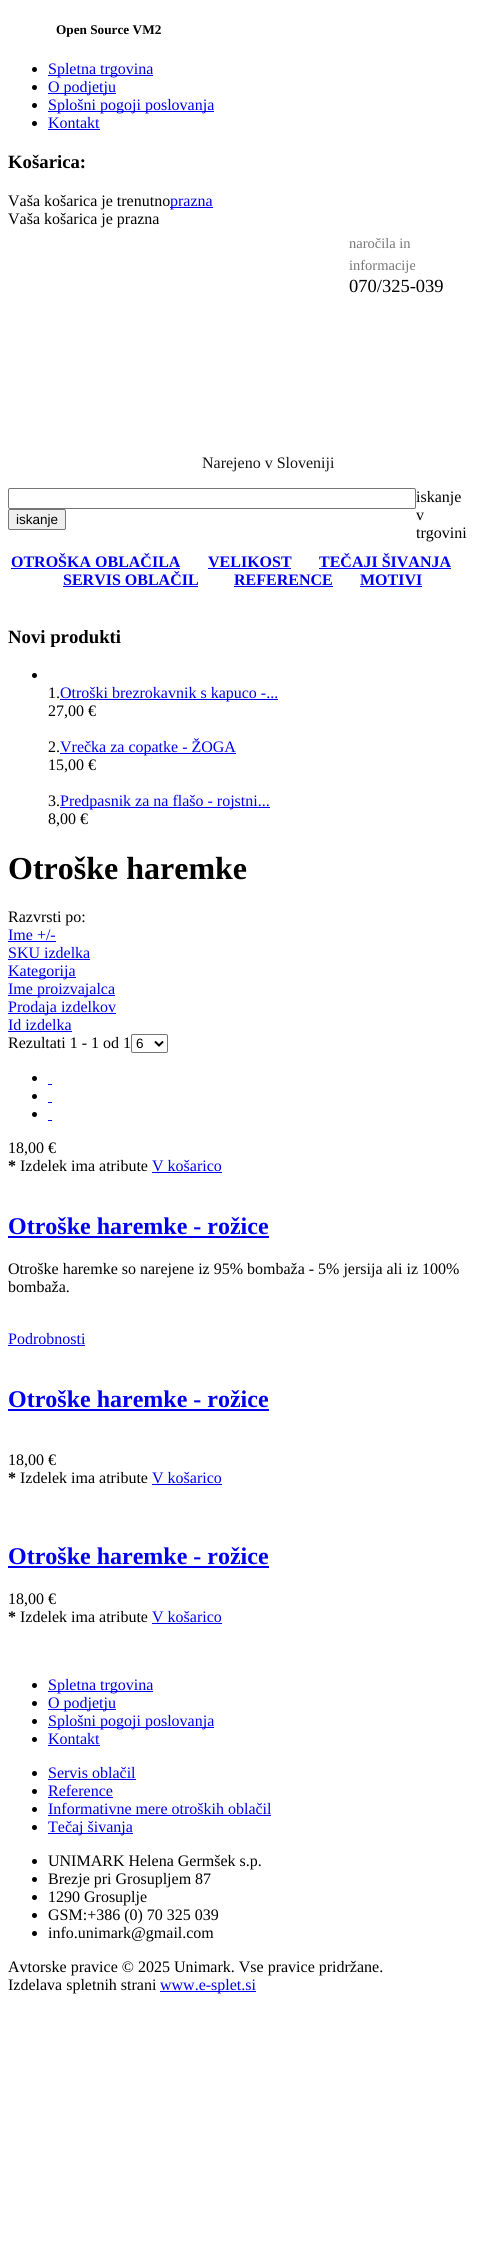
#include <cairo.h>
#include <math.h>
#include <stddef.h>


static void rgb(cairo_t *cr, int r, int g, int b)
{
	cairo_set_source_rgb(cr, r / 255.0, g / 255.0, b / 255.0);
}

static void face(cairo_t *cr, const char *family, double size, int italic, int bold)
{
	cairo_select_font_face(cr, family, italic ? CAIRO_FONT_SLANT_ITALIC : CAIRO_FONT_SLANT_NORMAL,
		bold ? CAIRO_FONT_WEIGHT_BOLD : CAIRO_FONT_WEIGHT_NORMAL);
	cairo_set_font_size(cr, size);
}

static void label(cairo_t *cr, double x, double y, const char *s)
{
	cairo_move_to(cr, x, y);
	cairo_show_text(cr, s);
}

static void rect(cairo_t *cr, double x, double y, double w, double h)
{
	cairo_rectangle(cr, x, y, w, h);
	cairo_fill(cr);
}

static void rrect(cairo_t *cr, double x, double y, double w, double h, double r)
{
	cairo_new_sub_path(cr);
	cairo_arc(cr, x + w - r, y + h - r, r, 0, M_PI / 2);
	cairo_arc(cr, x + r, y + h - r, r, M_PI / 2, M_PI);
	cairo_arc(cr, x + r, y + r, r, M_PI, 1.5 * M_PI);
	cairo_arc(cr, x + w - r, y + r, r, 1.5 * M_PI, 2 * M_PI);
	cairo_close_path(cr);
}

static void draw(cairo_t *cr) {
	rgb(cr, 255, 255, 255);
	cairo_paint(cr);
	face(cr, "Liberation Serif", 13.25, 0, 1);
	rgb(cr, 0, 0, 0);
	label(cr, 56, 34, "Open Source VM2");
	cairo_new_path(cr);
	cairo_arc(cr, 34.5, 69.5, 2.5, 0, 2 * M_PI);
	cairo_fill(cr);
	rgb(cr, 0, 0, 238);
	rect(cr, 48, 75, 105, 1);
	face(cr, "Liberation Serif", 16, 0, 0);
	label(cr, 48, 74, "Spletna trgovina");
	rgb(cr, 0, 0, 0);
	cairo_new_path(cr);
	cairo_arc(cr, 34.5, 87.5, 2.5, 0, 2 * M_PI);
	cairo_fill(cr);
	rgb(cr, 0, 0, 238);
	rect(cr, 48, 93, 68, 1);
	label(cr, 48, 92, "O podjetju");
	rgb(cr, 0, 0, 0);
	cairo_new_path(cr);
	cairo_arc(cr, 34.5, 105.5, 2.5, 0, 2 * M_PI);
	cairo_fill(cr);
	rgb(cr, 0, 0, 238);
	rect(cr, 48, 111, 166, 1);
	label(cr, 48, 110, "Splošni pogoji poslovanja");
	rgb(cr, 0, 0, 0);
	cairo_new_path(cr);
	cairo_arc(cr, 34.5, 123.5, 2.5, 0, 2 * M_PI);
	cairo_fill(cr);
	rgb(cr, 0, 0, 238);
	label(cr, 48, 128, "Kontakt");
	rect(cr, 48, 129, 52, 1);
	face(cr, "Liberation Serif", 18.75, 0, 1);
	rgb(cr, 0, 0, 0);
	label(cr, 8, 168, "Košarica:");
	face(cr, "Liberation Serif", 16, 0, 0);
	label(cr, 8, 206, "Vaša košarica je trenutno");
	rgb(cr, 0, 0, 238);
	rect(cr, 170, 207, 43, 1);
	label(cr, 170, 206, "prazna");
	rgb(cr, 0, 0, 0);
	label(cr, 8, 224, "Vaša košarica je prazna");
	face(cr, "Liberation Serif", 14.5, 0, 0);
	rgb(cr, 119, 119, 119);
	label(cr, 349, 248, "naročila in");
	label(cr, 349, 270, "informacije");
	face(cr, "Liberation Serif", 18.5, 0, 0);
	rgb(cr, 0, 0, 0);
	label(cr, 349, 292, "070/325-039");
	face(cr, "Liberation Serif", 16, 0, 0);
	rgb(cr, 21, 21, 21);
	label(cr, 202, 468, "Narejeno v Sloveniji");
	rrect(cr, 8.5, 488.5, 407, 20, 1.5);
	rgb(cr, 118, 118, 118);
	cairo_set_line_width(cr, 1);
	cairo_stroke(cr);
	rgb(cr, 0, 0, 0);
	label(cr, 416, 502, "iskanje");
	label(cr, 416, 520, "v");
	label(cr, 416, 538, "trgovini");
	rgb(cr, 239, 239, 239);
	rrect(cr, 8.5, 509.5, 57, 20, 1.5);
	cairo_fill_preserve(cr);
	rgb(cr, 118, 118, 118);
	cairo_stroke(cr);
	face(cr, "Liberation Sans", 13.5, 0, 0);
	rgb(cr, 0, 0, 0);
	label(cr, 16, 524, "iskanje");
	face(cr, "Liberation Serif", 16, 0, 1);
	rgb(cr, 0, 0, 238);
	label(cr, 11, 567, "OTROŠKA OBLAČILA");
	rect(cr, 11, 568, 169, 1);
	label(cr, 208, 567, "VELIKOST");
	rect(cr, 208, 568, 83, 1);
	label(cr, 319, 567, "TEČAJI ŠIVANJA");
	rect(cr, 319, 568, 132, 1);
	label(cr, 63, 585, "SERVIS OBLAČIL");
	rect(cr, 63, 586, 135, 1);
	label(cr, 234, 585, "REFERENCE");
	rect(cr, 234, 586, 99, 1);
	label(cr, 360, 585, "MOTIVI");
	rect(cr, 360, 586, 62, 1);
	face(cr, "Liberation Serif", 18.75, 0, 1);
	rgb(cr, 0, 0, 0);
	label(cr, 8, 643, "Novi produkti");
	cairo_new_path(cr);
	cairo_arc(cr, 34.5, 675.5, 2.5, 0, 2 * M_PI);
	cairo_fill(cr);
	face(cr, "Liberation Serif", 16, 0, 0);
	label(cr, 48, 698, "1.");
	rgb(cr, 0, 0, 238);
	rect(cr, 60, 699, 218, 1);
	label(cr, 60, 698, "Otroški brezrokavnik s kapuco -...");
	rgb(cr, 0, 0, 0);
	label(cr, 48, 716, "27,00 €");
	label(cr, 48, 752, "2.");
	rgb(cr, 0, 0, 238);
	rect(cr, 60, 753, 176, 1);
	label(cr, 60, 752, "Vrečka za copatke - ŽOGA");
	rgb(cr, 0, 0, 0);
	label(cr, 48, 770, "15,00 €");
	label(cr, 48, 806, "3.");
	rgb(cr, 0, 0, 238);
	rect(cr, 60, 807, 210, 1);
	label(cr, 60, 806, "Predpasnik za na flašo - rojstni...");
	rgb(cr, 0, 0, 0);
	label(cr, 48, 824, "8,00 €");
	face(cr, "Liberation Serif", 32, 0, 1);
	label(cr, 8, 879, "Otroške haremke");
	face(cr, "Liberation Serif", 16, 0, 0);
	label(cr, 8, 922, "Razvrsti po:");
	rgb(cr, 0, 0, 238);
	label(cr, 8, 940, "Ime +/-");
	rect(cr, 8, 941, 48, 1);
	label(cr, 8, 958, "SKU izdelka");
	rect(cr, 8, 959, 82, 1);
	rect(cr, 8, 977, 68, 1);
	label(cr, 8, 976, "Kategorija");
	rect(cr, 8, 995, 107, 1);
	label(cr, 8, 994, "Ime proizvajalca");
	rect(cr, 8, 1013, 108, 1);
	label(cr, 8, 1012, "Prodaja izdelkov");
	label(cr, 8, 1030, "Id izdelka");
	rect(cr, 8, 1031, 64, 1);
	rgb(cr, 0, 0, 0);
	label(cr, 8, 1048, "Rezultati 1 - 1 od 1");
	rrect(cr, 131.5, 1034.5, 36, 18, 1.5);
	rgb(cr, 118, 118, 118);
	cairo_stroke(cr);
	cairo_new_path(cr);
	cairo_move_to(cr, 155, 1041.5);
	cairo_line_to(cr, 159, 1045.5);
	cairo_line_to(cr, 163, 1041.5);
	rgb(cr, 0, 0, 0);
	cairo_set_line_width(cr, 2);
	cairo_stroke(cr);
	face(cr, "Liberation Sans", 13.5, 0, 0);
	label(cr, 136, 1048, "6");
	cairo_new_path(cr);
	cairo_arc(cr, 34.5, 1078.5, 2.5, 0, 2 * M_PI);
	cairo_fill(cr);
	rgb(cr, 0, 0, 238);
	rect(cr, 48, 1084, 4, 1);
	rgb(cr, 0, 0, 0);
	cairo_arc(cr, 34.5, 1096.5, 2.5, 0, 2 * M_PI);
	cairo_fill(cr);
	rgb(cr, 0, 0, 238);
	rect(cr, 48, 1102, 4, 1);
	rgb(cr, 0, 0, 0);
	cairo_arc(cr, 34.5, 1114.5, 2.5, 0, 2 * M_PI);
	cairo_fill(cr);
	rgb(cr, 0, 0, 238);
	rect(cr, 48, 1120, 4, 1);
	face(cr, "Liberation Serif", 16, 0, 0);
	rgb(cr, 0, 0, 0);
	label(cr, 8, 1153, "18,00 €");
	face(cr, "Liberation Serif", 16, 0, 1);
	label(cr, 8, 1171, "*");
	face(cr, "Liberation Serif", 16, 0, 0);
	label(cr, 20, 1171, "Izdelek ima atribute");
	rgb(cr, 0, 0, 238);
	label(cr, 152, 1171, "V košarico");
	rect(cr, 152, 1172, 70, 1);
	face(cr, "Liberation Serif", 24, 0, 1);
	label(cr, 8, 1234, "Otroške haremke - rožice");
	rect(cr, 8, 1236, 261, 2);
	face(cr, "Liberation Serif", 16, 0, 0);
	rgb(cr, 0, 0, 0);
	label(cr, 8, 1274, "Otroške haremke so narejene iz 95% bombaža - 5% jersija ali iz 100%");
	label(cr, 8, 1292, "bombaža.");
	rgb(cr, 0, 0, 238);
	label(cr, 8, 1344, "Podrobnosti");
	rect(cr, 8, 1345, 77, 1);
	face(cr, "Liberation Serif", 24, 0, 1);
	label(cr, 8, 1407, "Otroške haremke - rožice");
	rect(cr, 8, 1409, 261, 2);
	face(cr, "Liberation Serif", 16, 0, 0);
	rgb(cr, 0, 0, 0);
	label(cr, 8, 1465, "18,00 €");
	face(cr, "Liberation Serif", 16, 0, 1);
	label(cr, 8, 1483, "*");
	face(cr, "Liberation Serif", 16, 0, 0);
	label(cr, 20, 1483, "Izdelek ima atribute");
	rgb(cr, 0, 0, 238);
	label(cr, 152, 1483, "V košarico");
	rect(cr, 152, 1484, 70, 1);
	face(cr, "Liberation Serif", 24, 0, 1);
	label(cr, 8, 1564, "Otroške haremke - rožice");
	rect(cr, 8, 1566, 261, 2);
	face(cr, "Liberation Serif", 16, 0, 0);
	rgb(cr, 0, 0, 0);
	label(cr, 8, 1604, "18,00 €");
	face(cr, "Liberation Serif", 16, 0, 1);
	label(cr, 8, 1622, "*");
	face(cr, "Liberation Serif", 16, 0, 0);
	label(cr, 20, 1622, "Izdelek ima atribute");
	rgb(cr, 0, 0, 238);
	label(cr, 152, 1622, "V košarico");
	rect(cr, 152, 1623, 70, 1);
	rgb(cr, 0, 0, 0);
	cairo_new_path(cr);
	cairo_arc(cr, 34.5, 1685.5, 2.5, 0, 2 * M_PI);
	cairo_fill(cr);
	rgb(cr, 0, 0, 238);
	rect(cr, 48, 1691, 105, 1);
	label(cr, 48, 1690, "Spletna trgovina");
	rgb(cr, 0, 0, 0);
	cairo_new_path(cr);
	cairo_arc(cr, 34.5, 1703.5, 2.5, 0, 2 * M_PI);
	cairo_fill(cr);
	rgb(cr, 0, 0, 238);
	rect(cr, 48, 1709, 68, 1);
	label(cr, 48, 1708, "O podjetju");
	rgb(cr, 0, 0, 0);
	cairo_new_path(cr);
	cairo_arc(cr, 34.5, 1721.5, 2.5, 0, 2 * M_PI);
	cairo_fill(cr);
	rgb(cr, 0, 0, 238);
	rect(cr, 48, 1727, 166, 1);
	label(cr, 48, 1726, "Splošni pogoji poslovanja");
	rgb(cr, 0, 0, 0);
	cairo_new_path(cr);
	cairo_arc(cr, 34.5, 1739.5, 2.5, 0, 2 * M_PI);
	cairo_fill(cr);
	rgb(cr, 0, 0, 238);
	label(cr, 48, 1744, "Kontakt");
	rect(cr, 48, 1745, 52, 1);
	rgb(cr, 0, 0, 0);
	cairo_new_path(cr);
	cairo_arc(cr, 34.5, 1773.5, 2.5, 0, 2 * M_PI);
	cairo_fill(cr);
	rgb(cr, 0, 0, 238);
	label(cr, 48, 1778, "Servis oblačil");
	rect(cr, 48, 1779, 88, 1);
	rgb(cr, 0, 0, 0);
	cairo_new_path(cr);
	cairo_arc(cr, 34.5, 1791.5, 2.5, 0, 2 * M_PI);
	cairo_fill(cr);
	rgb(cr, 0, 0, 238);
	label(cr, 48, 1796, "Reference");
	rect(cr, 48, 1797, 65, 1);
	rgb(cr, 0, 0, 0);
	cairo_new_path(cr);
	cairo_arc(cr, 34.5, 1809.5, 2.5, 0, 2 * M_PI);
	cairo_fill(cr);
	rgb(cr, 0, 0, 238);
	label(cr, 48, 1814, "Informativne mere otroških oblačil");
	rect(cr, 48, 1815, 223, 1);
	rgb(cr, 0, 0, 0);
	cairo_new_path(cr);
	cairo_arc(cr, 34.5, 1827.5, 2.5, 0, 2 * M_PI);
	cairo_fill(cr);
	rgb(cr, 0, 0, 238);
	rect(cr, 48, 1833, 85, 1);
	label(cr, 48, 1832, "Tečaj šivanja");
	rgb(cr, 0, 0, 0);
	cairo_new_path(cr);
	cairo_arc(cr, 34.5, 1861.5, 2.5, 0, 2 * M_PI);
	cairo_fill(cr);
	label(cr, 48, 1866, "UNIMARK Helena Germšek s.p.");
	cairo_new_path(cr);
	cairo_arc(cr, 34.5, 1879.5, 2.5, 0, 2 * M_PI);
	cairo_fill(cr);
	label(cr, 48, 1884, "Brezje pri Grosupljem 87");
	cairo_new_path(cr);
	cairo_arc(cr, 34.5, 1897.5, 2.5, 0, 2 * M_PI);
	cairo_fill(cr);
	label(cr, 48, 1902, "1290 Grosuplje");
	cairo_new_path(cr);
	cairo_arc(cr, 34.5, 1915.5, 2.5, 0, 2 * M_PI);
	cairo_fill(cr);
	label(cr, 48, 1920, "GSM:+386 (0) 70 325 039");
	cairo_new_path(cr);
	cairo_arc(cr, 34.5, 1933.5, 2.5, 0, 2 * M_PI);
	cairo_fill(cr);
	label(cr, 48, 1938, "info.unimark@gmail.com");
	label(cr, 8, 1972, "Avtorske pravice © 2025 Unimark. Vse pravice pridržane.");
	label(cr, 8, 1990, "Izdelava spletnih strani");
	rgb(cr, 0, 0, 238);
	rect(cr, 160, 1991, 96, 1);
	label(cr, 160, 1990, "www.e-splet.si");
}

int main(void) {
	cairo_surface_t *surface = cairo_image_surface_create(CAIRO_FORMAT_RGB24, 477, 2265);
	cairo_t *cr = cairo_create(surface);
	cairo_font_options_t *options = cairo_font_options_create();
	cairo_font_options_set_hint_metrics(options, CAIRO_HINT_METRICS_OFF);
	cairo_font_options_set_hint_style(options, CAIRO_HINT_STYLE_NONE);
	cairo_set_font_options(cr, options);
	cairo_set_miter_limit(cr, 4);
	draw(cr);
	cairo_surface_write_to_png(surface, "render.png");
	cairo_font_options_destroy(options);
	cairo_destroy(cr);
	cairo_surface_destroy(surface);
	return 0;
}
